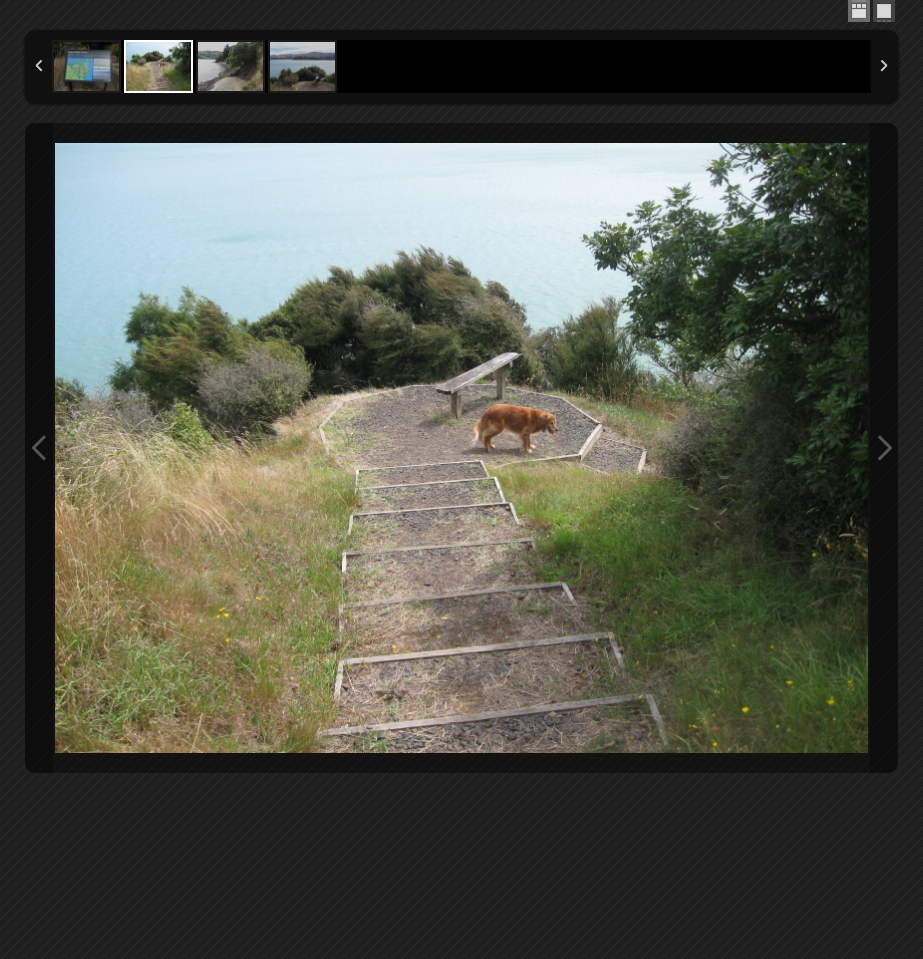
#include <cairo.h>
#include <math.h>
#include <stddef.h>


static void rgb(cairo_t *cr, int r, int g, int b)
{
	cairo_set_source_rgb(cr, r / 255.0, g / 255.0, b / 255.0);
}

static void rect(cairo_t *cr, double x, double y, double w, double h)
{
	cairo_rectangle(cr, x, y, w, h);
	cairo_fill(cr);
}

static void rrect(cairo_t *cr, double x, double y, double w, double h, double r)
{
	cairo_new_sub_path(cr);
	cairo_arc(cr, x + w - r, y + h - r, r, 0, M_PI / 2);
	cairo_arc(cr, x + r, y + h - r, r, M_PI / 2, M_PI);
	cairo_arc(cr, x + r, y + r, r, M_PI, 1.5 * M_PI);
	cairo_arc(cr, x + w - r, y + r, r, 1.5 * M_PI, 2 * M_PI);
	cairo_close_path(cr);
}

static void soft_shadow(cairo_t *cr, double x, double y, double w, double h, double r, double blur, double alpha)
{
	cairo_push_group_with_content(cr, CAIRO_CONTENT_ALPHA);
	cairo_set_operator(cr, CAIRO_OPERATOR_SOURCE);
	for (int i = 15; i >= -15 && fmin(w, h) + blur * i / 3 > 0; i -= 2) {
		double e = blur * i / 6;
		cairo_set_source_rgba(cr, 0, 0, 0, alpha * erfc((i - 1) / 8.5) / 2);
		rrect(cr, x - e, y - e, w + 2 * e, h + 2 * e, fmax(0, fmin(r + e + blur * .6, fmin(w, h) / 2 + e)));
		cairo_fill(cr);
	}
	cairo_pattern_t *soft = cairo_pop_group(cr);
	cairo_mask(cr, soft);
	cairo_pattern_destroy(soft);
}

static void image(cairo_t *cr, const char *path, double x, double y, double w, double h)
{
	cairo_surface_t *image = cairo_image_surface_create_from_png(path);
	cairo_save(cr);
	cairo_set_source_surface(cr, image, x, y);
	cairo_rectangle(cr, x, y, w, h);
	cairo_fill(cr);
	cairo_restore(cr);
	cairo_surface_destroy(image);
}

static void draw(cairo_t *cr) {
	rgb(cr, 31, 31, 31);
	cairo_paint(cr);
	image(cr, "image0.png", 0, 0, 923, 959);
	cairo_set_source_rgba(cr, 0.435, 0.435, 0.435, 0.8);
	rect(cr, 848, 0, 22, 22);
	image(cr, "image1.png", 852, 0, 14, 18);
	cairo_rectangle(cr, 849.5, 1.5, 19, 19);
	cairo_set_line_width(cr, 3);
	cairo_stroke(cr);
	cairo_set_source_rgba(cr, 0.275, 0.275, 0.275, 0.8);
	rect(cr, 873, 0, 22, 22);
	image(cr, "image2.png", 877, 4, 14, 18);
	cairo_rectangle(cr, 874.5, 1.5, 19, 19);
	cairo_stroke(cr);
	rgb(cr, 0, 0, 0);
	soft_shadow(cr, 25, 31, 873, 73, 10, 1.5, 0.9);
	rgb(cr, 16, 16, 16);
	rrect(cr, 25, 30, 873, 73, 10);
	cairo_fill(cr);
	rgb(cr, 0, 0, 0);
	rect(cr, 54, 40, 817, 53);
	cairo_rectangle(cr, 53, 41, 67, 51);
	rgb(cr, 27, 27, 27);
	cairo_set_line_width(cr, 2);
	cairo_stroke(cr);
	image(cr, "image3.png", 54, 42, 65, 49);
	cairo_rectangle(cr, 125, 41, 67, 51);
	rgb(cr, 255, 255, 255);
	cairo_stroke(cr);
	image(cr, "image4.png", 126, 42, 65, 49);
	cairo_rectangle(cr, 197, 41, 67, 51);
	rgb(cr, 27, 27, 27);
	cairo_stroke(cr);
	image(cr, "image5.png", 198, 42, 65, 49);
	cairo_rectangle(cr, 269, 41, 67, 51);
	cairo_stroke(cr);
	image(cr, "image6.png", 270, 42, 65, 49);
	image(cr, "image7.png", 35, 59, 8, 13);
	image(cr, "image8.png", 880, 59, 8, 13);
	image(cr, "image9.png", 25, 123, 873, 650);
	cairo_set_source_rgba(cr, 0, 0, 0, 0.3);
	cairo_new_path(cr);
	cairo_move_to(cr, 35, 123);
	cairo_line_to(cr, 53, 123);
	cairo_line_to(cr, 53, 773);
	cairo_line_to(cr, 35, 773);
	cairo_curve_to(cr, 29.5, 773, 25, 768.5, 25, 763);
	cairo_line_to(cr, 25, 133);
	cairo_curve_to(cr, 25, 127.5, 29.5, 123, 35, 123);
	cairo_close_path(cr);
	cairo_fill(cr);
	image(cr, "image10.png", 32, 435, 14, 26);
	cairo_new_path(cr);
	cairo_move_to(cr, 870, 123);
	cairo_line_to(cr, 888, 123);
	cairo_curve_to(cr, 893.5, 123, 898, 127.5, 898, 133);
	cairo_line_to(cr, 898, 763);
	cairo_curve_to(cr, 898, 768.5, 893.5, 773, 888, 773);
	cairo_line_to(cr, 870, 773);
	cairo_close_path(cr);
	cairo_fill(cr);
	image(cr, "image11.png", 877, 435, 15, 26);
	image(cr, "image12.png", 55, 143, 813, 610);
}

int main(void) {
	cairo_surface_t *surface = cairo_image_surface_create(CAIRO_FORMAT_RGB24, 923, 959);
	cairo_t *cr = cairo_create(surface);
	cairo_font_options_t *options = cairo_font_options_create();
	cairo_font_options_set_hint_metrics(options, CAIRO_HINT_METRICS_OFF);
	cairo_font_options_set_hint_style(options, CAIRO_HINT_STYLE_NONE);
	cairo_set_font_options(cr, options);
	cairo_set_miter_limit(cr, 4);
	draw(cr);
	cairo_surface_write_to_png(surface, "render.png");
	cairo_font_options_destroy(options);
	cairo_destroy(cr);
	cairo_surface_destroy(surface);
	return 0;
}
